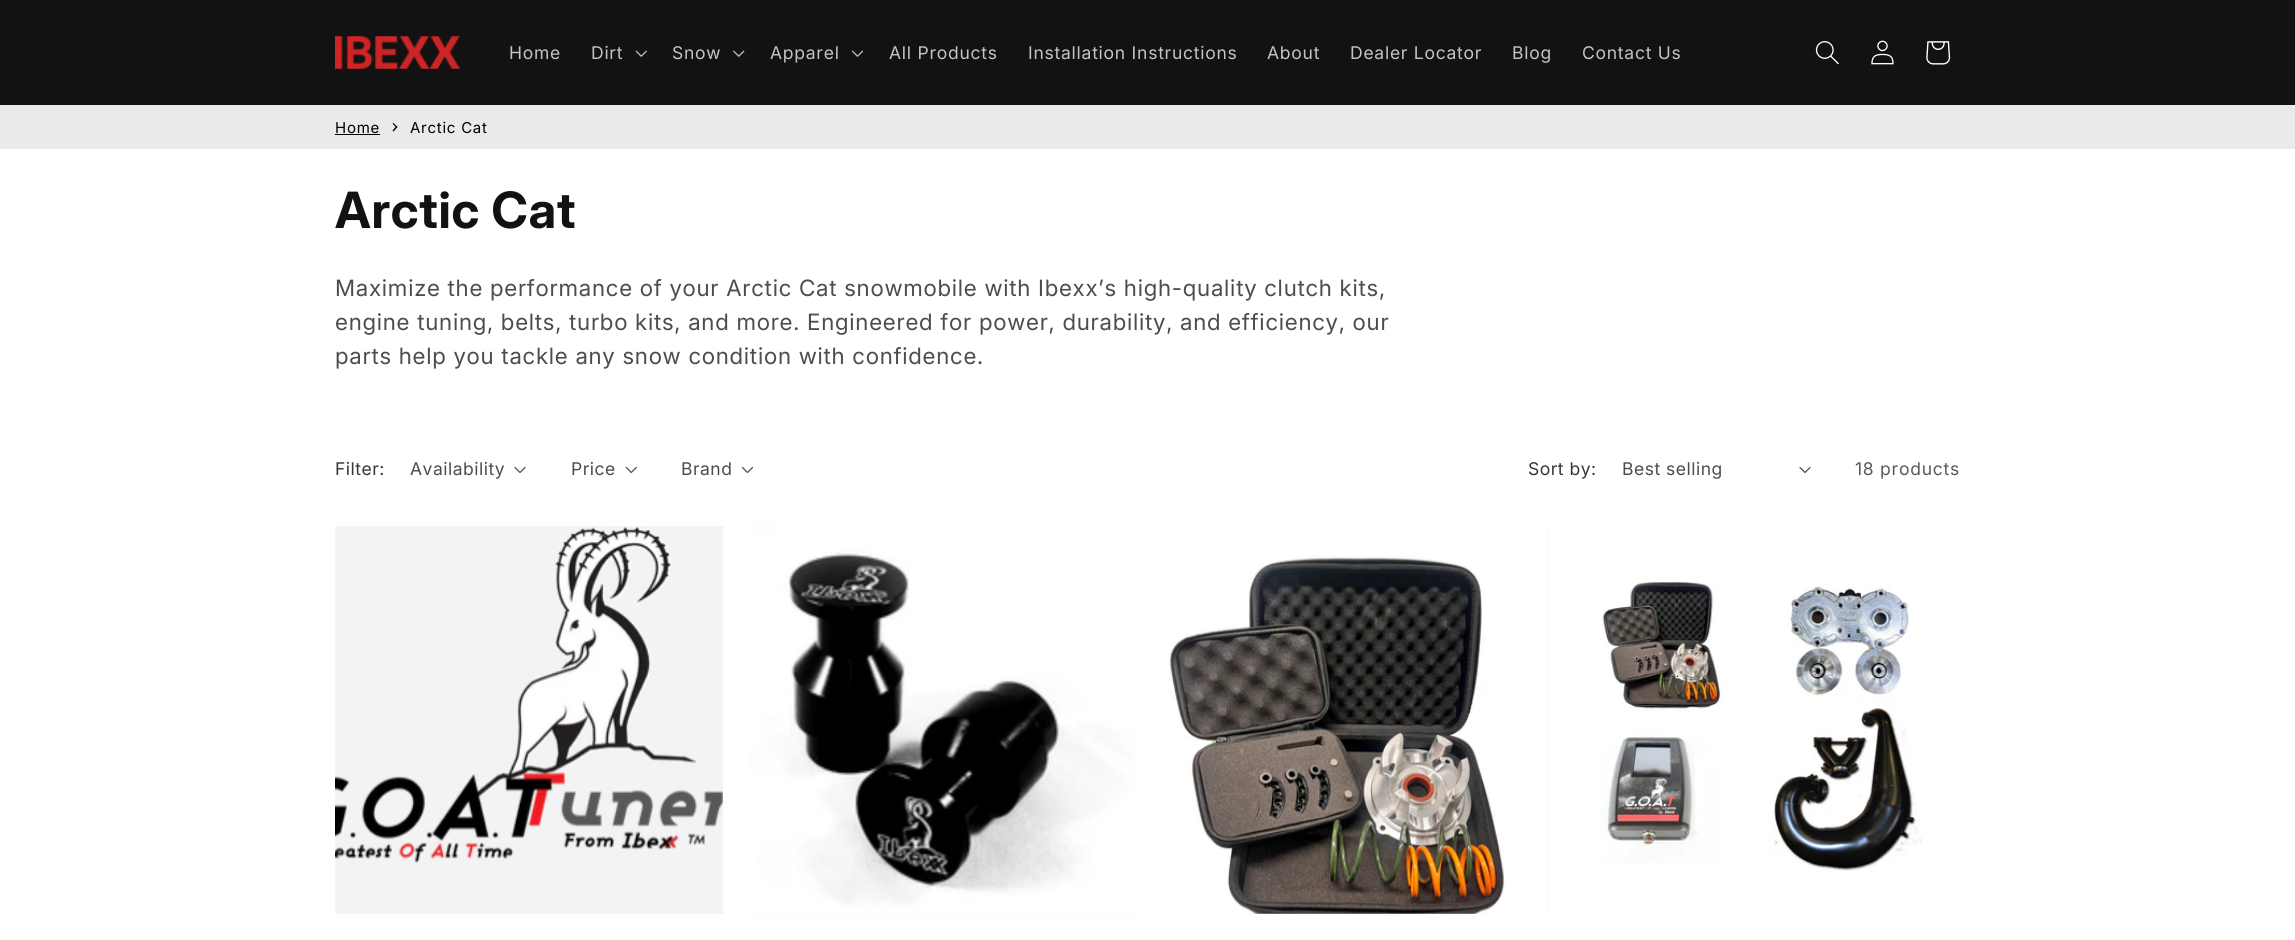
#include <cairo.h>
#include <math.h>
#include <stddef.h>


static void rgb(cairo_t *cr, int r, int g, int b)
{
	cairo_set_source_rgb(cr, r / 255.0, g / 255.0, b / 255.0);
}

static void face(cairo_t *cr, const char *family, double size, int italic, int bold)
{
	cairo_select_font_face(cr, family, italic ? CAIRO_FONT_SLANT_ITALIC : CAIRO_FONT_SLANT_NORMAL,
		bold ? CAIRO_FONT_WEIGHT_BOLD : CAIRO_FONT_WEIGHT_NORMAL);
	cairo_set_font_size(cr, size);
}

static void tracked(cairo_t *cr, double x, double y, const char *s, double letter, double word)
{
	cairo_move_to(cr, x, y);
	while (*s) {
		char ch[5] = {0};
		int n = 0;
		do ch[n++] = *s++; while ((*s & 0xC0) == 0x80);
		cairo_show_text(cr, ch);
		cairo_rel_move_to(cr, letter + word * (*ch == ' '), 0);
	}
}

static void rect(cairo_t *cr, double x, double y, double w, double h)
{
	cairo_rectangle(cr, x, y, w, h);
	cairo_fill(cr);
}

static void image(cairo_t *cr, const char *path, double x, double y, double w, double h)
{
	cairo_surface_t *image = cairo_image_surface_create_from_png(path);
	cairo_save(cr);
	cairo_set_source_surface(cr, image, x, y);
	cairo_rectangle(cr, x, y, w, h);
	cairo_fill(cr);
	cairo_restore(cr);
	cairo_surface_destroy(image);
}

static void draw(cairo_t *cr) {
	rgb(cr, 255, 255, 255);
	cairo_paint(cr);
	rgb(cr, 18, 18, 18);
	rect(cr, 0, 0, 2295, 105);
	image(cr, "image0.png", 335, 36, 125, 33);
	face(cr, "Inter", 17.5, 0, 0);
	rgb(cr, 196, 196, 196);
	tracked(cr, 509, 59, "Home", 0.75, 0);
	tracked(cr, 591, 59, "Dirt", 0.75, 0);
	image(cr, "image1.png", 635, 50, 12, 7);
	tracked(cr, 672, 59, "Snow", 0.75, 0);
	image(cr, "image2.png", 733, 50, 12, 7);
	tracked(cr, 770, 59, "Apparel", 0.75, 0);
	image(cr, "image3.png", 851, 50, 13, 7);
	tracked(cr, 889, 59, "All Products", 0.75, 0);
	tracked(cr, 1028, 59, "Installation Instructions", 0.75, 0);
	tracked(cr, 1267, 59, "About", 0.75, 0);
	tracked(cr, 1350, 59, "Dealer Locator", 0.75, 0);
	tracked(cr, 1512, 59, "Blog", 0.75, 0);
	tracked(cr, 1582, 59, "Contact Us", 0.75, 0);
	image(cr, "image4.png", 1815, 41, 24, 24);
	image(cr, "image5.png", 1871, 40, 23, 25);
	image(cr, "image6.png", 1926, 41, 25, 24);
	rgb(cr, 234, 234, 234);
	rect(cr, 0, 105, 2295, 44);
	face(cr, "Inter", 15, 0, 0);
	rgb(cr, 0, 0, 0);
	tracked(cr, 335, 133, "Home", 0.75, 0);
	rect(cr, 335, 134, 45, 1);
	cairo_new_path(cr);
	cairo_move_to(cr, 393.5, 123);
	cairo_line_to(cr, 397.5, 127);
	cairo_line_to(cr, 396.5, 128);
	cairo_line_to(cr, 392.5, 123.5);
	cairo_close_path(cr);
	cairo_fill(cr);
	cairo_new_path(cr);
	cairo_move_to(cr, 396.5, 126);
	cairo_line_to(cr, 397.5, 127);
	cairo_line_to(cr, 393.5, 131.5);
	cairo_line_to(cr, 392.5, 130.5);
	cairo_close_path(cr);
	cairo_fill(cr);
	tracked(cr, 410, 133, "Arctic Cat", 0.75, 0);
	face(cr, "Inter", 50, 0, 1);
	rgb(cr, 18, 18, 18);
	tracked(cr, 335, 228, "Arctic Cat", 0.75, 0);
	face(cr, "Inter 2", 22.5, 0, 0);
	rgb(cr, 77, 77, 77);
	tracked(cr, 335, 296, "Maximize the performance of your Arctic Cat snowmobile with Ibexx’s high-quality clutch kits,", 0.75, 0);
	tracked(cr, 335, 330, "engine tuning, belts, turbo kits, and more. Engineered for power, durability, and efficiency, our", 0.75, 0);
	tracked(cr, 335, 364, "parts help you tackle any snow condition with confidence.", 0.75, 0);
	face(cr, "Inter", 17.5, 0, 0);
	rgb(cr, 54, 54, 54);
	tracked(cr, 335, 475, "Filter:", 0.5, 0);
	rgb(cr, 77, 77, 77);
	tracked(cr, 410, 475, "Availability", 0.5, 0);
	image(cr, "image7.png", 514, 467, 12, 6);
	tracked(cr, 571, 475, "Price", 0.5, 0);
	image(cr, "image8.png", 625, 466, 12, 8);
	tracked(cr, 681, 475, "Brand", 0.5, 0);
	image(cr, "image9.png", 741, 466, 13, 8);
	rgb(cr, 54, 54, 54);
	tracked(cr, 1528, 475, "Sort by:", 0.5, 0);
	rgb(cr, 77, 77, 77);
	tracked(cr, 1622, 475, "Best selling", 0.5, 0);
	image(cr, "image7.png", 1799, 467, 12, 6);
	rgb(cr, 89, 89, 89);
	tracked(cr, 1855, 475, "18 products", 0.75, 0);
	rgb(cr, 243, 243, 243);
	rect(cr, 335, 526, 388, 388);
	image(cr, "image10.png", 335, 526, 388, 337);
	rect(cr, 748, 526, 387, 388);
	image(cr, "image11.png", 748, 526, 387, 388);
	rect(cr, 1160, 526, 388, 388);
	image(cr, "image12.png", 1160, 526, 388, 388);
	image(cr, "image13.png", 1573, 526, 387, 388);
}

int main(void) {
	cairo_surface_t *surface = cairo_image_surface_create(CAIRO_FORMAT_RGB24, 2295, 940);
	cairo_t *cr = cairo_create(surface);
	cairo_font_options_t *options = cairo_font_options_create();
	cairo_font_options_set_hint_metrics(options, CAIRO_HINT_METRICS_OFF);
	cairo_font_options_set_hint_style(options, CAIRO_HINT_STYLE_NONE);
	cairo_set_font_options(cr, options);
	cairo_set_miter_limit(cr, 4);
	draw(cr);
	cairo_surface_write_to_png(surface, "render.png");
	cairo_font_options_destroy(options);
	cairo_destroy(cr);
	cairo_surface_destroy(surface);
	return 0;
}
